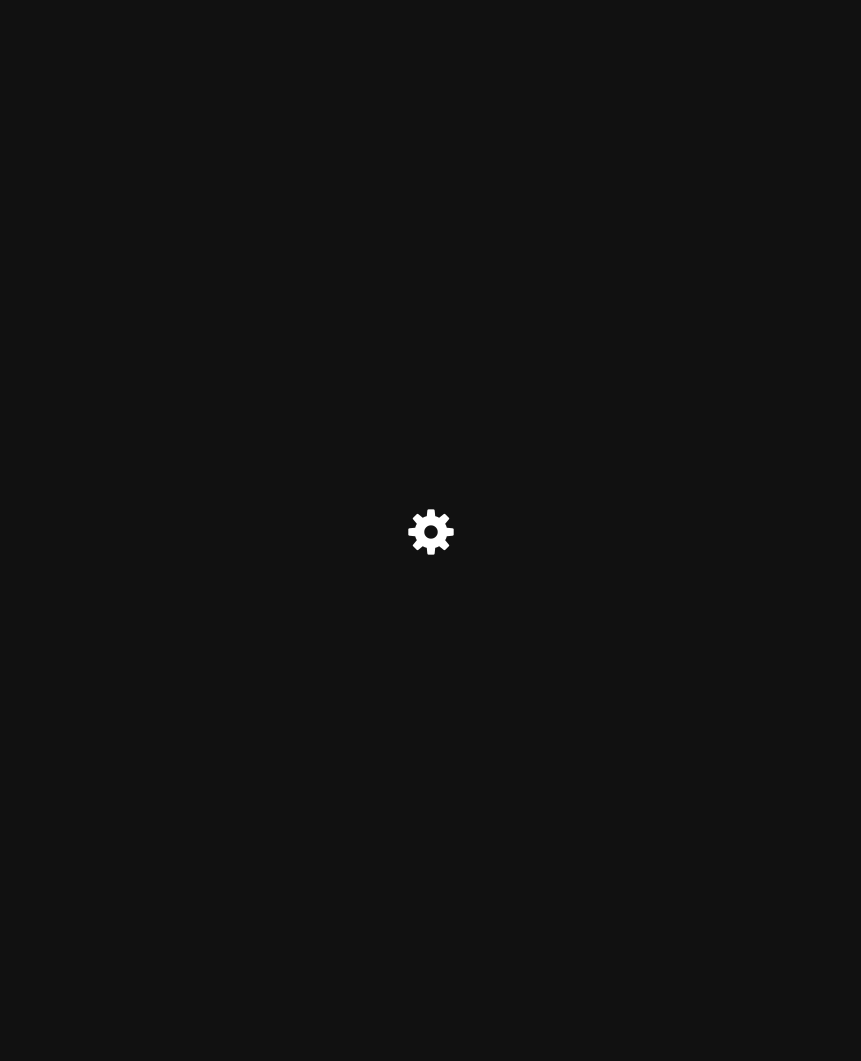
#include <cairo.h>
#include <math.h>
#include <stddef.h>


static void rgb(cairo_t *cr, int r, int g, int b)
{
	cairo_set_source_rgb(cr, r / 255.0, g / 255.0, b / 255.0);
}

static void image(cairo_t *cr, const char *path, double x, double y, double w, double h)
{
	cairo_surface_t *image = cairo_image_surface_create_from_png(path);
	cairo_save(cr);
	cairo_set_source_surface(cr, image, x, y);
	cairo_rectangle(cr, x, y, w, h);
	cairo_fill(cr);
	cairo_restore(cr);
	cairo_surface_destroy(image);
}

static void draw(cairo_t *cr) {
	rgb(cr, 17, 17, 17);
	cairo_paint(cr);
	image(cr, "image0.png", 408, 509, 46, 46);
}

int main(void) {
	cairo_surface_t *surface = cairo_image_surface_create(CAIRO_FORMAT_RGB24, 861, 1061);
	cairo_t *cr = cairo_create(surface);
	cairo_font_options_t *options = cairo_font_options_create();
	cairo_font_options_set_hint_metrics(options, CAIRO_HINT_METRICS_OFF);
	cairo_font_options_set_hint_style(options, CAIRO_HINT_STYLE_NONE);
	cairo_set_font_options(cr, options);
	cairo_set_miter_limit(cr, 4);
	draw(cr);
	cairo_surface_write_to_png(surface, "render.png");
	cairo_font_options_destroy(options);
	cairo_destroy(cr);
	cairo_surface_destroy(surface);
	return 0;
}
